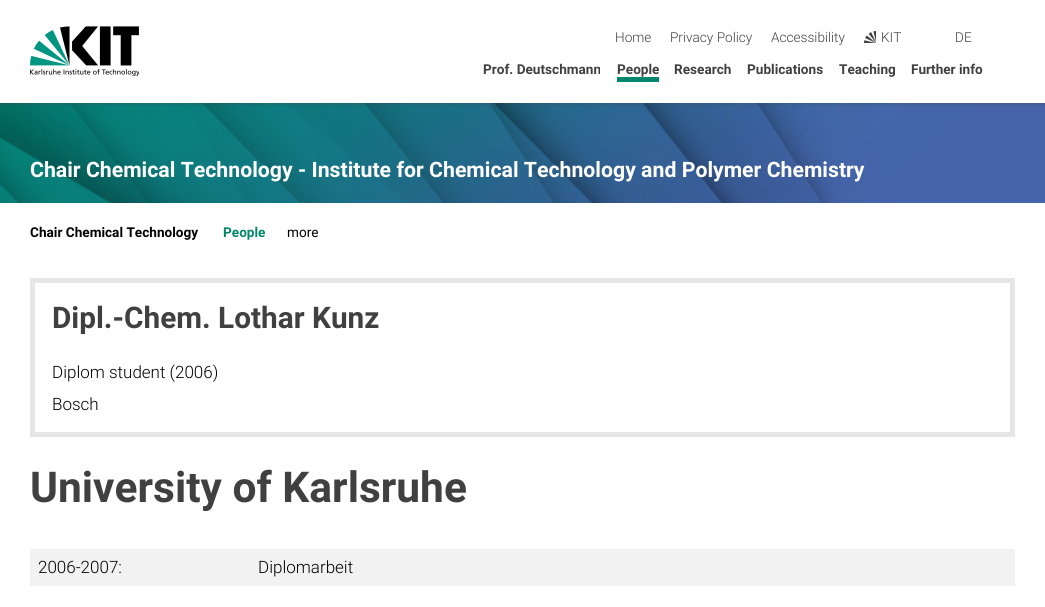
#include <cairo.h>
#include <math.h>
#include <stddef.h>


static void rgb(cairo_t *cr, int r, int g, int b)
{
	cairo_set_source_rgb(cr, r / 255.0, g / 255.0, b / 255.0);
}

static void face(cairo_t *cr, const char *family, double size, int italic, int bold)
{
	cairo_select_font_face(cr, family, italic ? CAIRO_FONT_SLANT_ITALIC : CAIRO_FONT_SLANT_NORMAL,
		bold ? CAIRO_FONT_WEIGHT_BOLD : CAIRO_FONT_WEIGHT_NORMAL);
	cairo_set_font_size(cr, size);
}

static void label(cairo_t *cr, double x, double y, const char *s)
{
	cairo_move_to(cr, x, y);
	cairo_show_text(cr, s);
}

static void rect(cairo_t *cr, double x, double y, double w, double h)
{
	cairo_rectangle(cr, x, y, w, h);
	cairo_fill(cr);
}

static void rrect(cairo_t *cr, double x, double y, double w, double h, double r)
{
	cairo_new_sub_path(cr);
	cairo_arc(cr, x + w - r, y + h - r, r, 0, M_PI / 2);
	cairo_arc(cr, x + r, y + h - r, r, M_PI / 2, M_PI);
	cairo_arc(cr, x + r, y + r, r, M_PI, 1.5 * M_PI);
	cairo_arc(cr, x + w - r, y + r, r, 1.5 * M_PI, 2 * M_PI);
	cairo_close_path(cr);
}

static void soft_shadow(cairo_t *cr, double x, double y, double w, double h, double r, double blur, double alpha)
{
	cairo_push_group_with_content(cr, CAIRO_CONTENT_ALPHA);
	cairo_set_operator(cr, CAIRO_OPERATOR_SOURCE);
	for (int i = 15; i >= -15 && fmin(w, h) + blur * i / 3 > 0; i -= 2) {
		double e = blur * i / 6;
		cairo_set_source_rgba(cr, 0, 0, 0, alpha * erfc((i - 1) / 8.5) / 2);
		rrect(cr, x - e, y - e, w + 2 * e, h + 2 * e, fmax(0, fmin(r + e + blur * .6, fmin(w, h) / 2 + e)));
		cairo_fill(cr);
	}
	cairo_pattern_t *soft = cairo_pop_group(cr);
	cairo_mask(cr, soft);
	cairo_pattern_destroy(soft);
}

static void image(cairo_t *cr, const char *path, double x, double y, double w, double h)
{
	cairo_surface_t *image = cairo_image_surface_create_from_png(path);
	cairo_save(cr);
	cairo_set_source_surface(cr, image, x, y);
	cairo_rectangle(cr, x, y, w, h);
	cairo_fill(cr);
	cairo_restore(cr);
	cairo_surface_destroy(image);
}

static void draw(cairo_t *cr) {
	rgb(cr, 255, 255, 255);
	cairo_paint(cr);
	image(cr, "image2.png", 0, 103, 1045, 100);
	cairo_save(cr);
	cairo_rectangle(cr, 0, 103, 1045, 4);
	cairo_clip(cr);
	rgb(cr, 64, 64, 64);
	soft_shadow(cr, 0, 0, 1045, 103, 0, 2.5, 0.5);
	cairo_restore(cr);
	image(cr, "image0.png", 30, 26, 109, 50);
	face(cr, "Roboto Light", 13.6, 0, 0);
	rgb(cr, 64, 64, 64);
	label(cr, 615, 42, "Home");
	label(cr, 670, 42, "Privacy Policy");
	label(cr, 771, 42, "Accessibility");
	image(cr, "image1.png", 864, 31, 12, 12);
	label(cr, 881, 42, "KIT");
	label(cr, 955, 42, "DE");
	face(cr, "Roboto", 13.6, 0, 1);
	label(cr, 483, 74, "Prof. Deutschmann");
	label(cr, 617, 74, "People");
	rgb(cr, 0, 135, 108);
	rect(cr, 617, 77, 42, 5);
	rgb(cr, 64, 64, 64);
	label(cr, 674, 74, "Research");
	label(cr, 747, 74, "Publications");
	label(cr, 839, 74, "Teaching");
	label(cr, 911, 74, "Further info");
	face(cr, "Roboto", 21.25, 0, 1);
	rgb(cr, 255, 255, 255);
	label(cr, 30, 177, "Chair Chemical Technology - Institute for Chemical Technology and Polymer Chemistry");
	face(cr, "Roboto", 13.6, 0, 1);
	rgb(cr, 0, 0, 0);
	label(cr, 30, 237, "Chair Chemical Technology");
	rgb(cr, 0, 135, 108);
	label(cr, 223, 237, "People");
	face(cr, "Roboto", 13.6, 0, 0);
	rgb(cr, 0, 0, 0);
	label(cr, 287, 237, "more");
	cairo_rectangle(cr, 32.5, 280.5, 980, 154);
	rgb(cr, 230, 230, 230);
	cairo_set_line_width(cr, 5);
	cairo_stroke(cr);
	face(cr, "Roboto", 29.75, 0, 1);
	rgb(cr, 64, 64, 64);
	label(cr, 52, 328, "Dipl.-Chem. Lothar Kunz");
	face(cr, "Roboto Light", 17, 0, 0);
	rgb(cr, 0, 0, 0);
	label(cr, 52, 378, "Diplom student (2006)");
	label(cr, 52, 410, "Bosch");
	face(cr, "Roboto", 42.5, 0, 1);
	rgb(cr, 64, 64, 64);
	label(cr, 30, 502, "University of Karlsruhe");
	rgb(cr, 242, 242, 242);
	rect(cr, 30, 549, 985, 37);
	face(cr, "Roboto Light", 17, 0, 0);
	rgb(cr, 0, 0, 0);
	label(cr, 38, 573, "2006-2007:");
	label(cr, 258, 573, "Diplomarbeit");
}

int main(void) {
	cairo_surface_t *surface = cairo_image_surface_create(CAIRO_FORMAT_RGB24, 1045, 607);
	cairo_t *cr = cairo_create(surface);
	cairo_font_options_t *options = cairo_font_options_create();
	cairo_font_options_set_hint_metrics(options, CAIRO_HINT_METRICS_OFF);
	cairo_font_options_set_hint_style(options, CAIRO_HINT_STYLE_NONE);
	cairo_set_font_options(cr, options);
	cairo_set_miter_limit(cr, 4);
	draw(cr);
	cairo_surface_write_to_png(surface, "render.png");
	cairo_font_options_destroy(options);
	cairo_destroy(cr);
	cairo_surface_destroy(surface);
	return 0;
}
